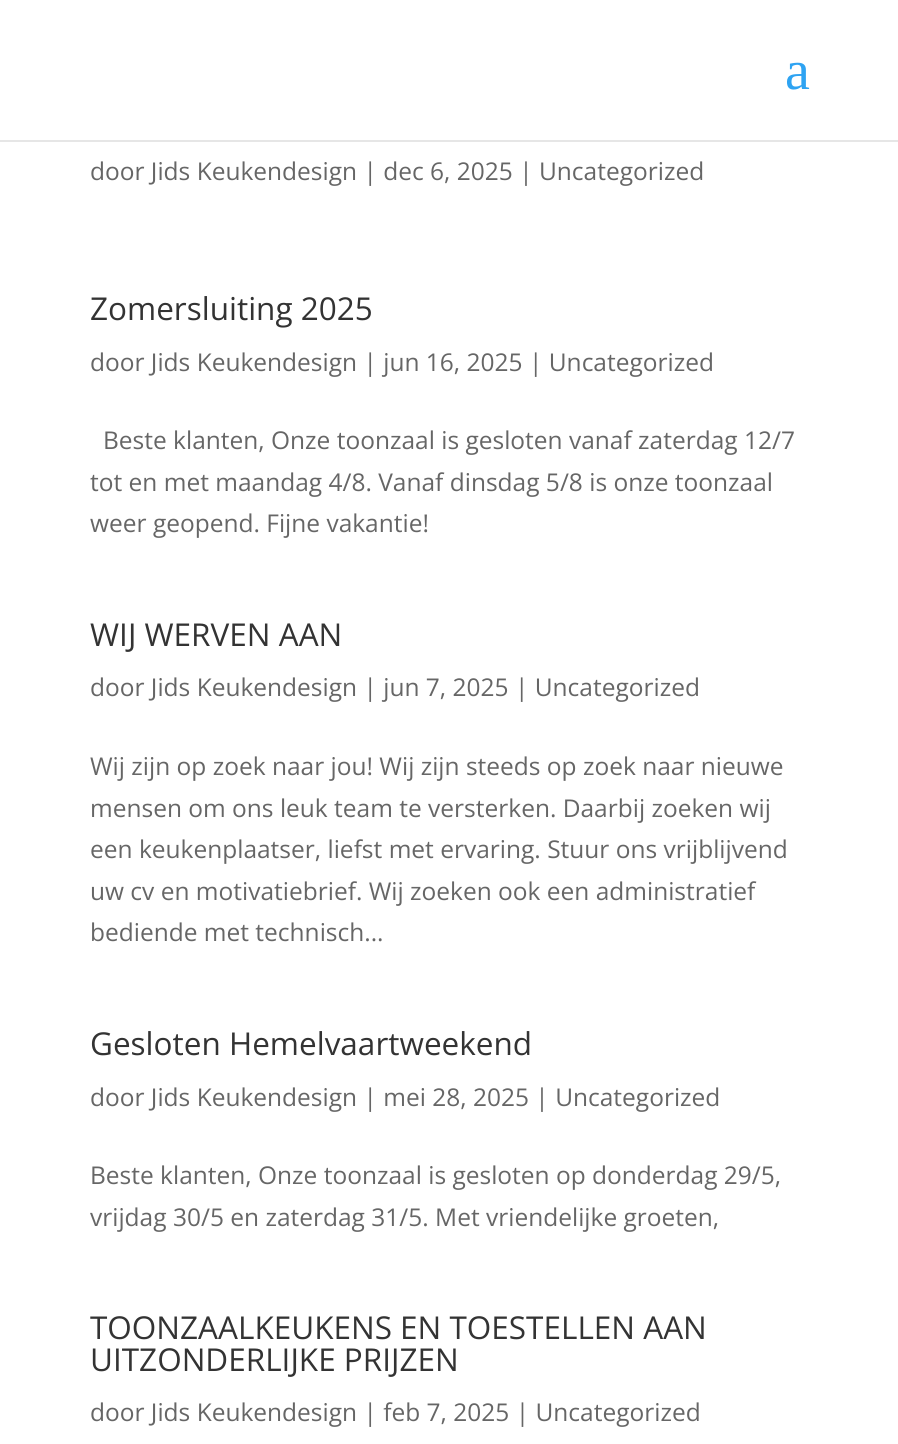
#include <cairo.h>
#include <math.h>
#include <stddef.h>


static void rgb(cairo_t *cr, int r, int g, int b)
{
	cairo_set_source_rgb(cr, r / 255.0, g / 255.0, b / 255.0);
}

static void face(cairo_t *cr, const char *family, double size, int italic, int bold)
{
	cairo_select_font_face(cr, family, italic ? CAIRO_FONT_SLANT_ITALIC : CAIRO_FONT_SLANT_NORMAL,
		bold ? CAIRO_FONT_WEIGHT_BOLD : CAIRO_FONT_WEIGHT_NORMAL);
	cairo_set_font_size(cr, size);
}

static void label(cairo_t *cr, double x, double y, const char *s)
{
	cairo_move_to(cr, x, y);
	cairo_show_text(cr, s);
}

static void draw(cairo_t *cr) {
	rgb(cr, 255, 255, 255);
	cairo_paint(cr);
	rgb(cr, 230, 230, 230);
	cairo_new_path(cr);
	cairo_move_to(cr, 0, 140);
	cairo_line_to(cr, 0, 142);
	cairo_line_to(cr, 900, 142);
	cairo_line_to(cr, 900, 2);
	cairo_line_to(cr, 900, 140);
	cairo_close_path(cr);
	cairo_fill(cr);
	face(cr, "Liberation Serif", 56, 0, 0);
	rgb(cr, 46, 163, 242);
	label(cr, 785, 89, "a");
	face(cr, "Open Sans", 24.5, 0, 0);
	rgb(cr, 102, 102, 102);
	label(cr, 90, 180, "door Jids Keukendesign | dec 6, 2025 | Uncategorized");
	face(cr, "Open Sans", 31.5, 0, 0);
	rgb(cr, 51, 51, 51);
	label(cr, 90, 320, "Zomersluiting 2025");
	face(cr, "Open Sans", 24.5, 0, 0);
	rgb(cr, 102, 102, 102);
	label(cr, 90, 371, "door Jids Keukendesign | jun 16, 2025 | Uncategorized");
	label(cr, 103, 449, "Beste klanten, Onze toonzaal is gesloten vanaf zaterdag 12/7");
	label(cr, 90, 491, "tot en met maandag 4/8. Vanaf dinsdag 5/8 is onze toonzaal");
	label(cr, 90, 532, "weer geopend. Fijne vakantie!");
	face(cr, "Open Sans", 31.5, 0, 0);
	rgb(cr, 51, 51, 51);
	label(cr, 90, 646, "WIJ WERVEN AAN");
	face(cr, "Open Sans", 24.5, 0, 0);
	rgb(cr, 102, 102, 102);
	label(cr, 90, 696, "door Jids Keukendesign | jun 7, 2025 | Uncategorized");
	label(cr, 90, 775, "Wij zijn op zoek naar jou! Wij zijn steeds op zoek naar nieuwe");
	label(cr, 90, 817, "mensen om ons leuk team te versterken. Daarbij zoeken wij");
	label(cr, 90, 858, "een keukenplaatser, liefst met ervaring. Stuur ons vrijblijvend");
	label(cr, 90, 900, "uw cv en motivatiebrief. Wij zoeken ook een administratief");
	label(cr, 90, 941, "bediende met technisch...");
	face(cr, "Open Sans", 31.5, 0, 0);
	rgb(cr, 51, 51, 51);
	label(cr, 90, 1055, "Gesloten Hemelvaartweekend");
	face(cr, "Open Sans", 24.5, 0, 0);
	rgb(cr, 102, 102, 102);
	label(cr, 90, 1106, "door Jids Keukendesign | mei 28, 2025 | Uncategorized");
	label(cr, 90, 1184, "Beste klanten, Onze toonzaal is gesloten op donderdag 29/5,");
	label(cr, 90, 1226, "vrijdag 30/5 en zaterdag 31/5. Met vriendelijke groeten,");
	face(cr, "Open Sans", 31.5, 0, 0);
	rgb(cr, 51, 51, 51);
	label(cr, 90, 1339, "TOONZAALKEUKENS EN TOESTELLEN AAN");
	label(cr, 90, 1371, "UITZONDERLIJKE PRIJZEN");
	face(cr, "Open Sans", 24.5, 0, 0);
	rgb(cr, 102, 102, 102);
	label(cr, 90, 1421, "door Jids Keukendesign | feb 7, 2025 | Uncategorized");
}

int main(void) {
	cairo_surface_t *surface = cairo_image_surface_create(CAIRO_FORMAT_RGB24, 898, 1444);
	cairo_t *cr = cairo_create(surface);
	cairo_font_options_t *options = cairo_font_options_create();
	cairo_font_options_set_hint_metrics(options, CAIRO_HINT_METRICS_OFF);
	cairo_font_options_set_hint_style(options, CAIRO_HINT_STYLE_NONE);
	cairo_set_font_options(cr, options);
	cairo_set_miter_limit(cr, 4);
	draw(cr);
	cairo_surface_write_to_png(surface, "render.png");
	cairo_font_options_destroy(options);
	cairo_destroy(cr);
	cairo_surface_destroy(surface);
	return 0;
}
